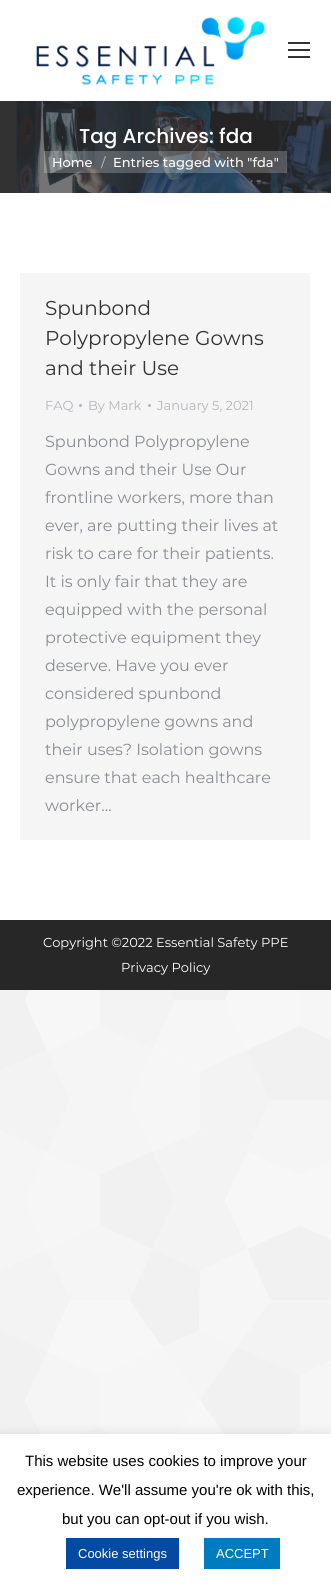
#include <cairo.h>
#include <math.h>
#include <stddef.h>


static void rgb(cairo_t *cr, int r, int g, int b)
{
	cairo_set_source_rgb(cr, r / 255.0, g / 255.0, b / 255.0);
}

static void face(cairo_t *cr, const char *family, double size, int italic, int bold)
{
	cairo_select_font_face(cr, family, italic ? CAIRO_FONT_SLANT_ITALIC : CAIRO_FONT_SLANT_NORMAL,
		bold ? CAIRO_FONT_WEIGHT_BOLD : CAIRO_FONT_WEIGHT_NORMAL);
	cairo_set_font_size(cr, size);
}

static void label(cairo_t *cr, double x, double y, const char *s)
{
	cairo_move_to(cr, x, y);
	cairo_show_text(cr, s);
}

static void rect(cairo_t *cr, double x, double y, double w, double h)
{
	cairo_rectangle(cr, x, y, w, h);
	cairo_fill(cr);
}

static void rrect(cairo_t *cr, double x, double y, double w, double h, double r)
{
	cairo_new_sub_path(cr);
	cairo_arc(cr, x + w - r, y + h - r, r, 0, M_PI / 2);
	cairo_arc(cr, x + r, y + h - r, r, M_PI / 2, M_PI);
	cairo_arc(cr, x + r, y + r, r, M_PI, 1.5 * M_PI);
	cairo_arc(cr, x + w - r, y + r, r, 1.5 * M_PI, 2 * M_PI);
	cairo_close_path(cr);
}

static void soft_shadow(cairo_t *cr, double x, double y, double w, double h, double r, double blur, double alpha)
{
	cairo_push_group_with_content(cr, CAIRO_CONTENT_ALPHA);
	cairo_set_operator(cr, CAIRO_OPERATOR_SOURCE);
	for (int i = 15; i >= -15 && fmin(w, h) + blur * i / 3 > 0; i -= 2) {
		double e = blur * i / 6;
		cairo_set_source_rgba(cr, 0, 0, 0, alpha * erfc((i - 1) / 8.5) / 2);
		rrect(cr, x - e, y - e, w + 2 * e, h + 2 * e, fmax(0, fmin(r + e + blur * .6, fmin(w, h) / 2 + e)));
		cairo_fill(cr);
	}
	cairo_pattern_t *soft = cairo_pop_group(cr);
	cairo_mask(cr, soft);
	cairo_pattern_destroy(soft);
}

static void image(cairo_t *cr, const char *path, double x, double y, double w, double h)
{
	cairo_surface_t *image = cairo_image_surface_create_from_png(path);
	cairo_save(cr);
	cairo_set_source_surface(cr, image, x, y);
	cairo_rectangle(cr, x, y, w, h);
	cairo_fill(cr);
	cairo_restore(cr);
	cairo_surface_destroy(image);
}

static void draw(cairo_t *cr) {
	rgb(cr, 255, 255, 255);
	cairo_paint(cr);
	image(cr, "image0.png", 0, 990, 331, 444);
	image(cr, "image1.png", 36, 16, 229, 69);
	rgb(cr, 51, 51, 51);
	rect(cr, 288, 42, 22, 2);
	rect(cr, 288, 49, 22, 2);
	rect(cr, 288, 56, 22, 2);
	image(cr, "image2.png", 0, 101, 331, 92);
	face(cr, "Poppins Medium", 20, 0, 0);
	rgb(cr, 255, 255, 255);
	label(cr, 79, 143, "Tag Archives: fda");
	cairo_set_source_rgba(cr, 1, 1, 1, 0.22);
	rect(cr, 44, 151, 243, 22);
	face(cr, "Montserrat Medium", 13, 0, 0);
	rgb(cr, 255, 255, 255);
	label(cr, 52, 167, "Home");
	rgb(cr, 173, 176, 180);
	label(cr, 101, 167, "/");
	rgb(cr, 255, 255, 255);
	label(cr, 113, 167, "Entries tagged with \"fda\"");
	rgb(cr, 245, 245, 245);
	rect(cr, 20, 273, 290, 567);
	face(cr, "Montserrat", 20, 0, 0);
	rgb(cr, 51, 51, 51);
	label(cr, 45, 315, "Spunbond");
	label(cr, 45, 345, "Polypropylene Gowns");
	label(cr, 45, 375, "and their Use");
	face(cr, "Montserrat", 13, 0, 0);
	rgb(cr, 180, 181, 187);
	label(cr, 45, 410, "FAQ");
	cairo_new_path(cr);
	cairo_arc(cr, 80.5, 405.5, 1.5, 0, 2 * M_PI);
	cairo_fill(cr);
	label(cr, 88, 410, "By Mark");
	cairo_new_path(cr);
	cairo_arc(cr, 149.5, 405.5, 1.5, 0, 2 * M_PI);
	cairo_fill(cr);
	label(cr, 157, 410, "January 5, 2021");
	face(cr, "Montserrat", 16, 0, 0);
	rgb(cr, 139, 141, 148);
	label(cr, 45, 447, "Spunbond Polypropylene");
	label(cr, 45, 475, "Gowns and their Use Our");
	label(cr, 45, 503, "frontline workers, more than");
	label(cr, 45, 531, "ever, are putting their lives at");
	label(cr, 45, 559, "risk to care for their patients.");
	label(cr, 45, 587, "It is only fair that they are");
	label(cr, 45, 615, "equipped with the personal");
	label(cr, 45, 643, "protective equipment they");
	label(cr, 45, 671, "deserve. Have you ever");
	label(cr, 45, 699, "considered spunbond");
	label(cr, 45, 727, "polypropylene gowns and");
	label(cr, 45, 755, "their uses? Isolation gowns");
	label(cr, 45, 783, "ensure that each healthcare");
	label(cr, 45, 811, "worker…");
	rgb(cr, 39, 39, 39);
	rect(cr, 0, 920, 331, 70);
	face(cr, "Montserrat", 13, 0, 0);
	rgb(cr, 255, 255, 255);
	label(cr, 43, 947, "Copyright ©2022 Essential Safety PPE");
	label(cr, 121, 972, "Privacy Policy");
	rgb(cr, 172, 171, 171);
	soft_shadow(cr, 0, 1433, 331, 152, 0, 5, 0.3);
	rgb(cr, 255, 255, 255);
	rect(cr, 0, 1434, 331, 152);
	face(cr, "Liberation Sans", 15, 0, 0);
	rgb(cr, 0, 0, 0);
	label(cr, 25, 1466, "This website uses cookies to improve your");
	label(cr, 17, 1495, "experience. We'll assume you're ok with this,");
	label(cr, 62, 1524, "but you can opt-out if you wish.");
	rgb(cr, 5, 74, 162);
	rect(cr, 66, 1538, 113, 31);
	face(cr, "Liberation Sans", 13, 0, 0);
	rgb(cr, 255, 255, 255);
	label(cr, 78, 1558, "Cookie settings");
	rgb(cr, 1, 123, 192);
	rect(cr, 204, 1538, 76, 31);
	rgb(cr, 255, 255, 255);
	label(cr, 216, 1558, "ACCEPT");
}

int main(void) {
	cairo_surface_t *surface = cairo_image_surface_create(CAIRO_FORMAT_RGB24, 331, 1586);
	cairo_t *cr = cairo_create(surface);
	cairo_font_options_t *options = cairo_font_options_create();
	cairo_font_options_set_hint_metrics(options, CAIRO_HINT_METRICS_OFF);
	cairo_font_options_set_hint_style(options, CAIRO_HINT_STYLE_NONE);
	cairo_set_font_options(cr, options);
	cairo_set_miter_limit(cr, 4);
	draw(cr);
	cairo_surface_write_to_png(surface, "render.png");
	cairo_font_options_destroy(options);
	cairo_destroy(cr);
	cairo_surface_destroy(surface);
	return 0;
}
